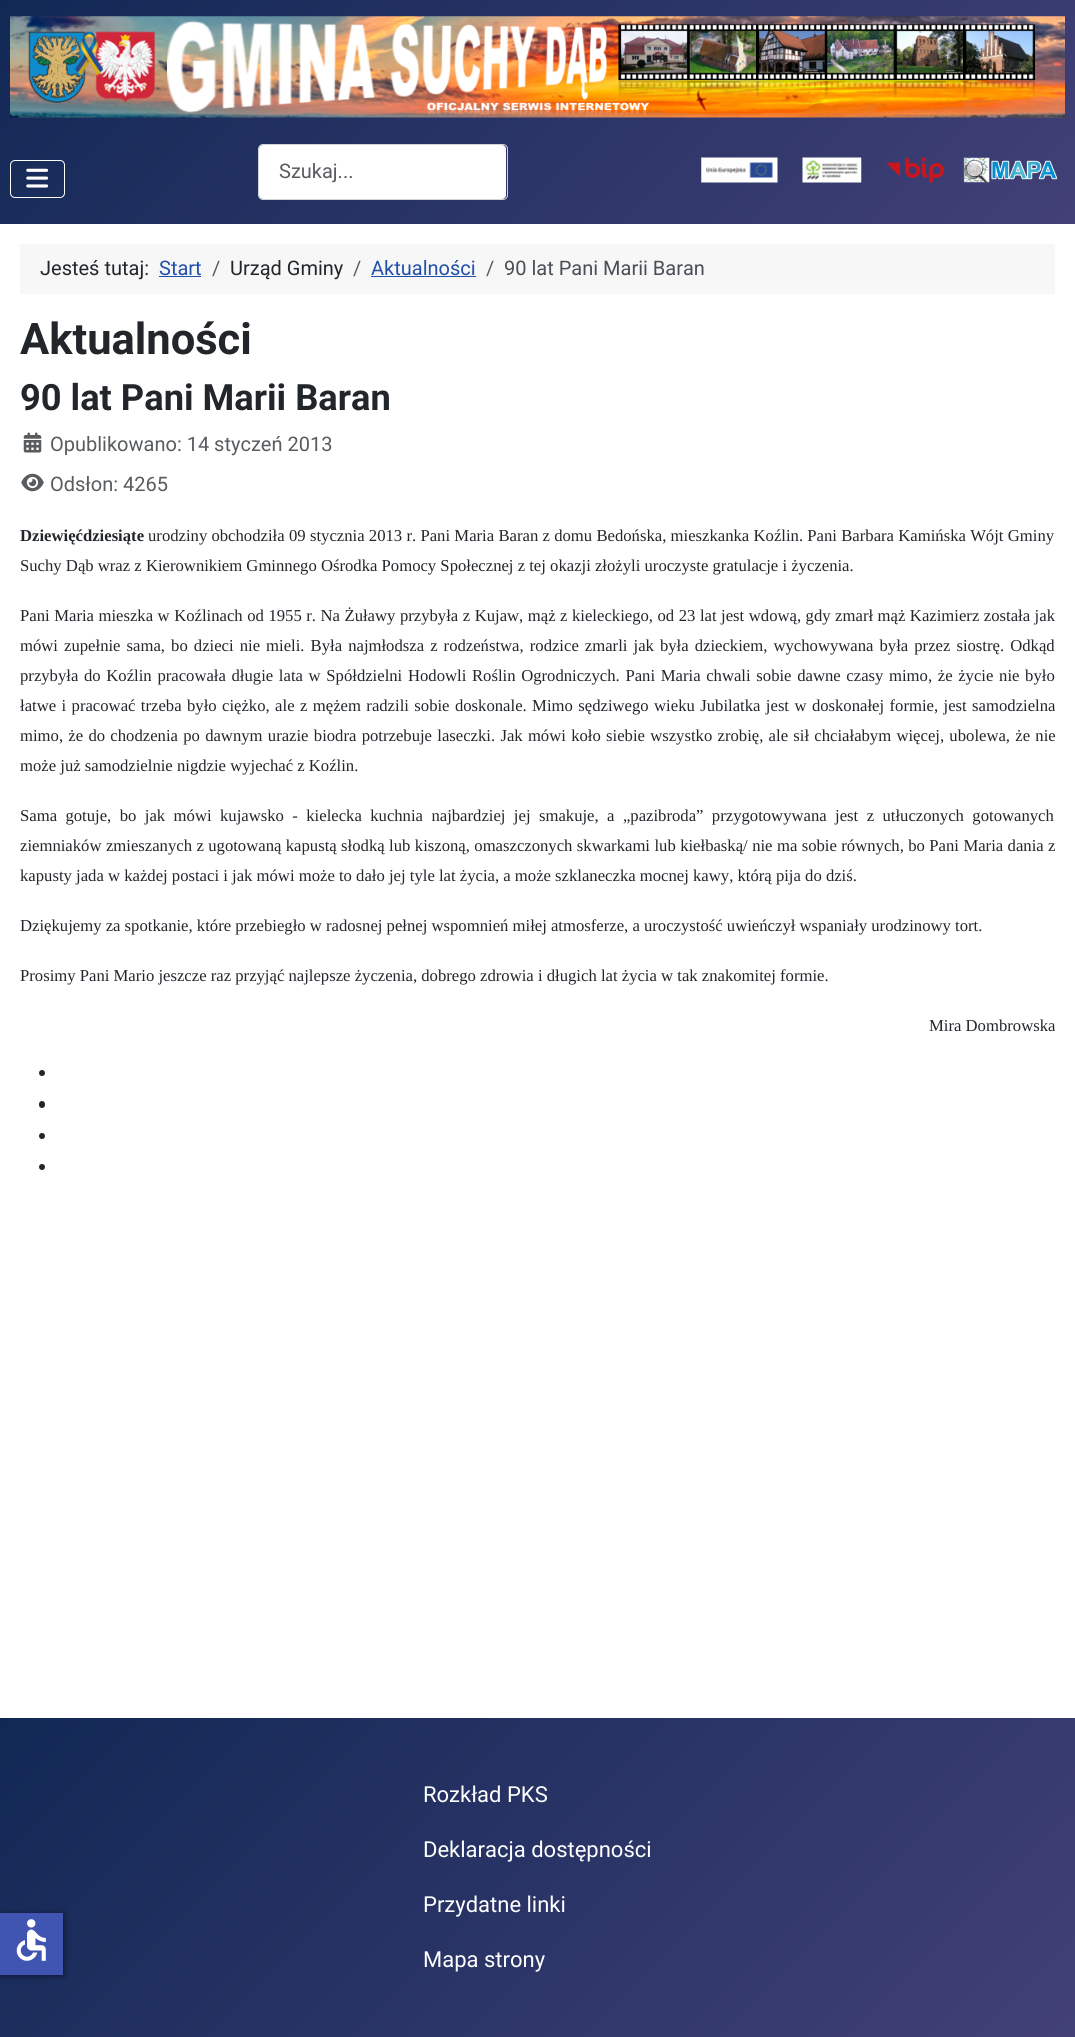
#include <cairo.h>
#include <math.h>
#include <stddef.h>


static void rgb(cairo_t *cr, int r, int g, int b)
{
	cairo_set_source_rgb(cr, r / 255.0, g / 255.0, b / 255.0);
}

static void face(cairo_t *cr, const char *family, double size, int italic, int bold)
{
	cairo_select_font_face(cr, family, italic ? CAIRO_FONT_SLANT_ITALIC : CAIRO_FONT_SLANT_NORMAL,
		bold ? CAIRO_FONT_WEIGHT_BOLD : CAIRO_FONT_WEIGHT_NORMAL);
	cairo_set_font_size(cr, size);
}

static void label(cairo_t *cr, double x, double y, const char *s)
{
	cairo_move_to(cr, x, y);
	cairo_show_text(cr, s);
}

static void tracked(cairo_t *cr, double x, double y, const char *s, double letter, double word)
{
	cairo_move_to(cr, x, y);
	while (*s) {
		char ch[5] = {0};
		int n = 0;
		do ch[n++] = *s++; while ((*s & 0xC0) == 0x80);
		cairo_show_text(cr, ch);
		cairo_rel_move_to(cr, letter + word * (*ch == ' '), 0);
	}
}

static void rect(cairo_t *cr, double x, double y, double w, double h)
{
	cairo_rectangle(cr, x, y, w, h);
	cairo_fill(cr);
}

static void rrect(cairo_t *cr, double x, double y, double w, double h, double r)
{
	cairo_new_sub_path(cr);
	cairo_arc(cr, x + w - r, y + h - r, r, 0, M_PI / 2);
	cairo_arc(cr, x + r, y + h - r, r, M_PI / 2, M_PI);
	cairo_arc(cr, x + r, y + r, r, M_PI, 1.5 * M_PI);
	cairo_arc(cr, x + w - r, y + r, r, 1.5 * M_PI, 2 * M_PI);
	cairo_close_path(cr);
}

static void soft_shadow(cairo_t *cr, double x, double y, double w, double h, double r, double blur, double alpha)
{
	cairo_push_group_with_content(cr, CAIRO_CONTENT_ALPHA);
	cairo_set_operator(cr, CAIRO_OPERATOR_SOURCE);
	for (int i = 15; i >= -15 && fmin(w, h) + blur * i / 3 > 0; i -= 2) {
		double e = blur * i / 6;
		cairo_set_source_rgba(cr, 0, 0, 0, alpha * erfc((i - 1) / 8.5) / 2);
		rrect(cr, x - e, y - e, w + 2 * e, h + 2 * e, fmax(0, fmin(r + e + blur * .6, fmin(w, h) / 2 + e)));
		cairo_fill(cr);
	}
	cairo_pattern_t *soft = cairo_pop_group(cr);
	cairo_mask(cr, soft);
	cairo_pattern_destroy(soft);
}

static void image(cairo_t *cr, const char *path, double x, double y, double w, double h)
{
	cairo_surface_t *image = cairo_image_surface_create_from_png(path);
	cairo_save(cr);
	cairo_set_source_surface(cr, image, x, y);
	cairo_rectangle(cr, x, y, w, h);
	cairo_fill(cr);
	cairo_restore(cr);
	cairo_surface_destroy(image);
}

static void draw(cairo_t *cr) {
	cairo_pattern_t *gradient;
	rgb(cr, 255, 255, 255);
	cairo_paint(cr);
	gradient = cairo_pattern_create_linear(213, -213, 862, 437);
	cairo_pattern_add_color_stop_rgba(gradient, 0, 0.067, 0.157, 0.333, 1);
	cairo_pattern_add_color_stop_rgba(gradient, 1, 0.259, 0.251, 0.467, 1);
	cairo_set_source(cr, gradient);
	cairo_pattern_destroy(gradient);
	rect(cr, 0, 0, 1075, 224);
	image(cr, "image0.png", 10, 16, 1055, 102);
	rrect(cr, 10.5, 160.5, 54, 37, 4.5);
	rgb(cr, 255, 255, 255);
	cairo_set_line_width(cr, 1);
	cairo_stroke(cr);
	image(cr, "image1.png", 26, 168, 23, 20);
	rrect(cr, 259, 145, 247, 54, 4);
	cairo_fill(cr);
	rrect(cr, 258.5, 144.5, 249, 55, 4.5);
	rgb(cr, 206, 212, 218);
	cairo_stroke(cr);
	face(cr, "Roboto", 20, 0, 0);
	rgb(cr, 89, 92, 95);
	label(cr, 279, 178, "Szukaj...");
	image(cr, "image2.png", 701, 157, 77, 26);
	image(cr, "image3.png", 802, 157, 60, 26);
	image(cr, "image4.png", 886, 157, 58, 26);
	image(cr, "image5.png", 963, 157, 95, 26);
	rgb(cr, 247, 247, 247);
	rect(cr, 20, 244, 1035, 50);
	rgb(cr, 34, 38, 42);
	label(cr, 40, 275, "Jesteś tutaj:");
	rgb(cr, 34, 79, 170);
	label(cr, 159, 275, "Start");
	rect(cr, 159, 276, 42, 1);
	rgb(cr, 89, 92, 95);
	label(cr, 212, 275, "/");
	rgb(cr, 34, 38, 42);
	label(cr, 230, 275, "Urząd Gminy");
	rgb(cr, 89, 92, 95);
	label(cr, 353, 275, "/");
	rgb(cr, 34, 79, 170);
	label(cr, 371, 275, "Aktualności");
	rect(cr, 371, 276, 105, 1);
	rgb(cr, 89, 92, 95);
	label(cr, 486, 275, "/");
	rgb(cr, 72, 79, 86);
	label(cr, 504, 275, "90 lat Pani Marii Baran");
	face(cr, "Roboto", 43.5, 0, 1);
	rgb(cr, 34, 38, 42);
	label(cr, 20, 354, "Aktualności");
	face(cr, "Roboto", 36.25, 0, 1);
	label(cr, 20, 410, "90 lat Pani Marii Baran");
	image(cr, "image6.png", 23, 432, 19, 21);
	face(cr, "Roboto", 20, 0, 0);
	rgb(cr, 89, 92, 95);
	label(cr, 50, 451, "Opublikowano: 14 styczeń 2013");
	image(cr, "image7.png", 21, 473, 23, 19);
	label(cr, 50, 491, "Odsłon: 4265");
	face(cr, "Liberation Serif", 16.67, 0, 1);
	rgb(cr, 34, 38, 42);
	label(cr, 20, 541, "Dziewięćdziesiąte");
	face(cr, "Liberation Serif", 16.67, 0, 0);
	label(cr, 148, 541, "urodziny obchodziła");
	tracked(cr, 289, 541, "09 stycznia 2013 r. Pani Maria Baran z domu Bedońska, mieszkanka Koźlin. Pani Barbara Kamińska Wójt Gminy", 0, 0.1);
	label(cr, 20, 571, "Suchy Dąb wraz z Kierownikiem Gminnego Ośrodka Pomocy Społecznej z tej okazji złożyli uroczyste gratulacje i życzenia.");
	tracked(cr, 20, 621, "Pani Maria mieszka w Koźlinach od 1955 r. Na Żuławy przybyła z Kujaw, mąż z kieleckiego, od 23 lat jest wdową, gdy zmarł mąż Kazimierz została jak", 0, 0.35);
	tracked(cr, 20, 651, "mówi zupełnie sama, bo dzieci nie mieli. Była najmłodsza z rodzeństwa, rodzice zmarli jak była dzieckiem, wychowywana była przez siostrę. Odkąd", 0, 1.9);
	tracked(cr, 20, 681, "przybyła do Koźlin pracowała długie lata w Spółdzielni Hodowli Roślin Ogrodniczych. Pani Maria chwali sobie dawne czasy mimo, że życie nie było", 0, 1.5);
	tracked(cr, 20, 711, "łatwe i pracować trzeba było ciężko, ale z mężem radzili sobie doskonale. Mimo sędziwego wieku Jubilatka jest w doskonałej formie, jest samodzielna", 0, 1.25);
	tracked(cr, 20, 741, "mimo, że do chodzenia po dawnym urazie biodra potrzebuje laseczki. Jak mówi koło siebie wszystko zrobię, ale sił chciałabym więcej, ubolewa, że nie", 0, 1.1);
	label(cr, 20, 771, "może już samodzielnie nigdzie wyjechać z Koźlin.");
	tracked(cr, 20, 821, "Sama gotuje, bo jak mówi kujawsko - kielecka kuchnia najbardziej jej smakuje, a „pazibroda” przygotowywana jest z utłuczonych gotowanych", 0, 4.25);
	tracked(cr, 20, 851, "ziemniaków zmieszanych z ugotowaną kapustą słodką lub kiszoną, omaszczonych skwarkami lub kiełbaską/ nie ma sobie równych, bo Pani Maria dania z", 0, 0.25);
	label(cr, 20, 881, "kapusty jada w każdej postaci i jak mówi może to dało jej tyle lat życia, a może szklaneczka mocnej kawy, którą pija do dziś.");
	label(cr, 20, 931, "Dziękujemy za spotkanie, które przebiegło w radosnej pełnej wspomnień miłej atmosferze, a uroczystość uwieńczył wspaniały urodzinowy tort.");
	label(cr, 20, 981, "Prosimy Pani Mario jeszcze raz przyjąć najlepsze życzenia, dobrego zdrowia i długich lat życia w tak znakomitej formie.");
	label(cr, 929, 1031, "Mira Dombrowska");
	cairo_new_path(cr);
	cairo_arc(cr, 42, 1073, 3, 0, 2 * M_PI);
	cairo_fill(cr);
	rrect(cr, 39, 1101, 6, 7, 3);
	cairo_fill(cr);
	cairo_arc(cr, 42, 1136, 3, 0, 2 * M_PI);
	cairo_fill(cr);
	cairo_arc(cr, 42, 1167, 3, 0, 2 * M_PI);
	cairo_fill(cr);
	gradient = cairo_pattern_create_linear(189, 1529, 886, 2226);
	cairo_pattern_add_color_stop_rgba(gradient, 0, 0.067, 0.157, 0.333, 1);
	cairo_pattern_add_color_stop_rgba(gradient, 1, 0.259, 0.251, 0.467, 1);
	cairo_set_source(cr, gradient);
	cairo_pattern_destroy(gradient);
	rect(cr, 0, 1718, 1075, 319);
	rgb(cr, 0, 0, 0);
	soft_shadow(cr, 1, 1914, 63, 62, 0, 3, 0.5);
	rgb(cr, 64, 84, 178);
	rect(cr, 0, 1913, 63, 62);
	image(cr, "image8.png", 16, 1919, 30, 42);
	face(cr, "Roboto", 22, 0, 0);
	rgb(cr, 255, 255, 255);
	label(cr, 423, 1802, "Rozkład PKS");
	label(cr, 423, 1857, "Deklaracja dostępności");
	label(cr, 423, 1912, "Przydatne linki");
	label(cr, 423, 1967, "Mapa strony");
}

int main(void) {
	cairo_surface_t *surface = cairo_image_surface_create(CAIRO_FORMAT_RGB24, 1075, 2037);
	cairo_t *cr = cairo_create(surface);
	cairo_font_options_t *options = cairo_font_options_create();
	cairo_font_options_set_hint_metrics(options, CAIRO_HINT_METRICS_OFF);
	cairo_font_options_set_hint_style(options, CAIRO_HINT_STYLE_NONE);
	cairo_set_font_options(cr, options);
	cairo_set_miter_limit(cr, 4);
	draw(cr);
	cairo_surface_write_to_png(surface, "render.png");
	cairo_font_options_destroy(options);
	cairo_destroy(cr);
	cairo_surface_destroy(surface);
	return 0;
}
